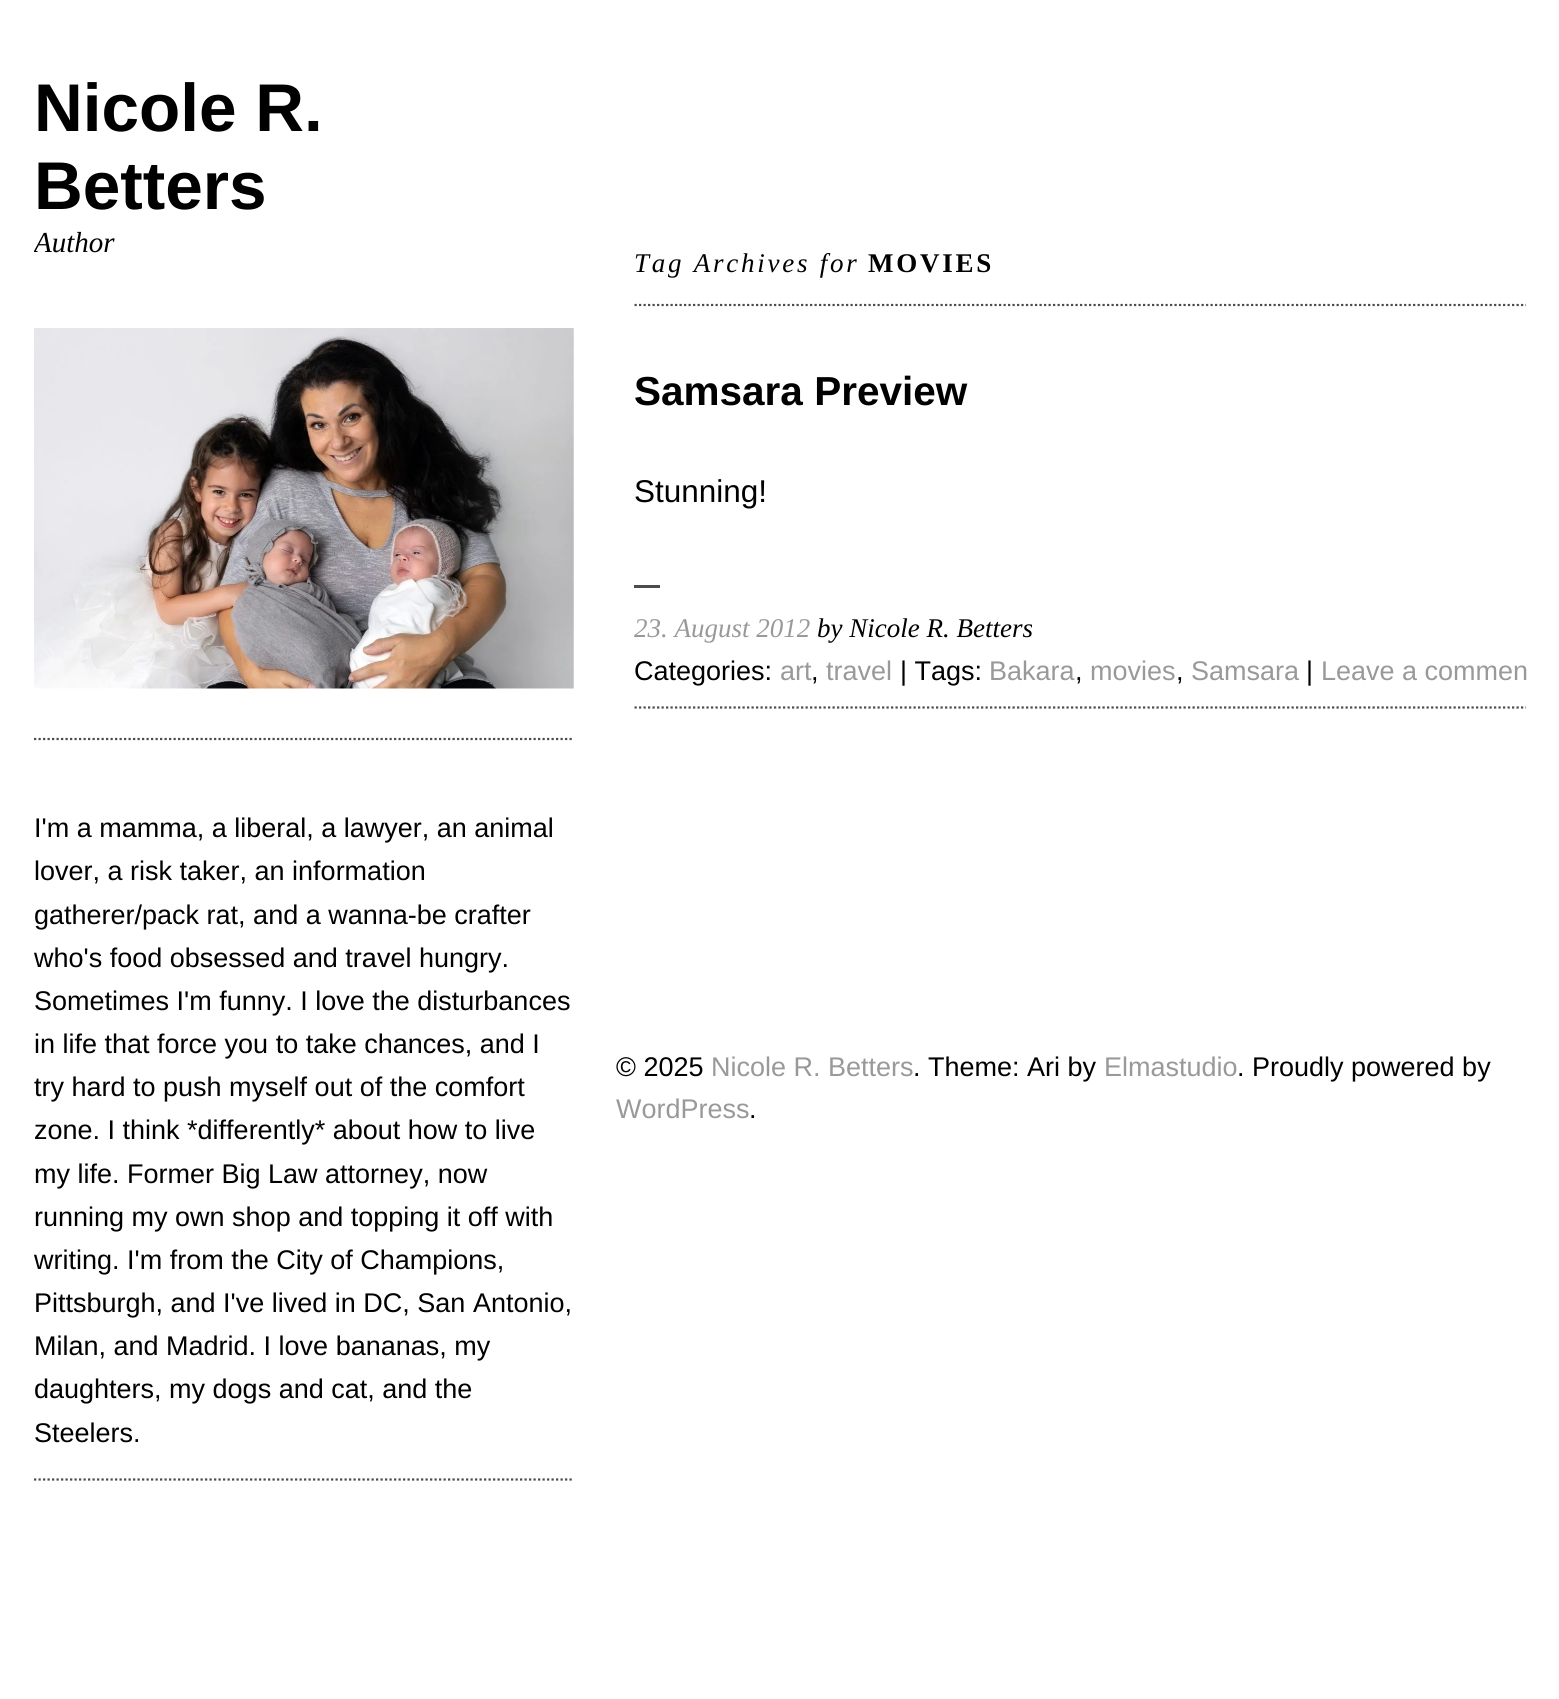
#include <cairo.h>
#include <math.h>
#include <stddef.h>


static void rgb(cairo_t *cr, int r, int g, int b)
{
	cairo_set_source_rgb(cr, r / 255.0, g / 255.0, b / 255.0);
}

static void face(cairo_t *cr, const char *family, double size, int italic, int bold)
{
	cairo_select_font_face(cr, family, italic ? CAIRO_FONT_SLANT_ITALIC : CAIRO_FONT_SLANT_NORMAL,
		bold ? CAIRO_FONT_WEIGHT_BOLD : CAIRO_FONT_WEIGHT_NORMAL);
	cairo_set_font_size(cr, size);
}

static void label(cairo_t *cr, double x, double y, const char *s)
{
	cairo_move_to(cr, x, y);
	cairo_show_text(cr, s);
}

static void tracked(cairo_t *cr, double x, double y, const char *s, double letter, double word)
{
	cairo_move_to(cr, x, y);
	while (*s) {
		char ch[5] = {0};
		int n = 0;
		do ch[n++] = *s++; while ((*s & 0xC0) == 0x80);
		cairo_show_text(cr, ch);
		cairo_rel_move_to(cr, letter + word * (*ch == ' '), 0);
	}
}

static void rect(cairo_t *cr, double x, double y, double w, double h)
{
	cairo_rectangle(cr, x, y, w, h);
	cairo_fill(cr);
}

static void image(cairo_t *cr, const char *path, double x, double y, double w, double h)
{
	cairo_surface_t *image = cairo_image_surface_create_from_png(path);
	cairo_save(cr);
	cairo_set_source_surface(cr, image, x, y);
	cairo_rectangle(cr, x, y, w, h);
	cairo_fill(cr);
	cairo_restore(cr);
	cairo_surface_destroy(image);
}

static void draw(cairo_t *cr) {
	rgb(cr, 255, 255, 255);
	cairo_paint(cr);
	face(cr, "Liberation Sans", 67.5, 0, 1);
	rgb(cr, 0, 0, 0);
	label(cr, 34, 131, "Nicole R.");
	label(cr, 34, 209, "Betters");
	cairo_save(cr);
	cairo_rectangle(cr, 34, 56, 540, 205);
	cairo_clip(cr);
	face(cr, "Liberation Serif", 29, 1, 0);
	label(cr, 34, 252, "Author");
	cairo_restore(cr);
	cairo_new_path(cr);
	cairo_move_to(cr, 34, 739);
	cairo_line_to(cr, 574, 739);
	rgb(cr, 76, 76, 76);
	cairo_set_line_width(cr, 2.2);
	cairo_set_dash(cr, (double[]){2.25, 2.25}, 2, 0);
	cairo_stroke(cr);
	image(cr, "image0.png", 34, 328, 540, 361);
	cairo_new_path(cr);
	cairo_move_to(cr, 34, 1479.5);
	cairo_line_to(cr, 574, 1479.5);
	cairo_stroke(cr);
	face(cr, "Liberation Sans", 27, 0, 0);
	rgb(cr, 0, 0, 0);
	label(cr, 34, 837, "I'm a mamma, a liberal, a lawyer, an animal");
	label(cr, 34, 880, "lover, a risk taker, an information");
	label(cr, 34, 924, "gatherer/pack rat, and a wanna-be crafter");
	label(cr, 34, 967, "who's food obsessed and travel hungry.");
	label(cr, 34, 1010, "Sometimes I'm funny. I love the disturbances");
	label(cr, 34, 1053, "in life that force you to take chances, and I");
	label(cr, 34, 1096, "try hard to push myself out of the comfort");
	label(cr, 34, 1139, "zone. I think *differently* about how to live");
	label(cr, 34, 1183, "my life. Former Big Law attorney, now");
	label(cr, 34, 1226, "running my own shop and topping it off with");
	label(cr, 34, 1269, "writing. I'm from the City of Champions,");
	label(cr, 34, 1312, "Pittsburgh, and I've lived in DC, San Antonio,");
	label(cr, 34, 1355, "Milan, and Madrid. I love bananas, my");
	label(cr, 34, 1398, "daughters, my dogs and cat, and the");
	label(cr, 34, 1442, "Steelers.");
	cairo_save(cr);
	cairo_rectangle(cr, 500, 248, 1026, 798);
	cairo_clip(cr);
	cairo_new_path(cr);
	cairo_move_to(cr, 634.5, 305);
	cairo_line_to(cr, 1543.5, 305);
	rgb(cr, 76, 76, 76);
	cairo_stroke(cr);
	cairo_restore(cr);
	face(cr, "Liberation Serif", 27, 1, 0);
	tracked(cr, 634, 272, "Tag Archives for", 2.75, 0);
	face(cr, "Liberation Serif", 27, 0, 1);
	tracked(cr, 868, 272, "MOVIES", 2.75, 0);
	cairo_save(cr);
	cairo_rectangle(cr, 500, 248, 1026, 798);
	cairo_clip(cr);
	cairo_new_path(cr);
	cairo_move_to(cr, 634.5, 707.5);
	cairo_line_to(cr, 1543.5, 707.5);
	rgb(cr, 76, 76, 76);
	cairo_stroke(cr);
	cairo_restore(cr);
	face(cr, "Liberation Sans", 40.5, 0, 1);
	label(cr, 634, 405, "Samsara Preview");
	face(cr, "Liberation Sans", 31.5, 0, 0);
	label(cr, 634, 502, "Stunning!");
	rgb(cr, 76, 76, 76);
	rect(cr, 634, 585, 26, 3);
	face(cr, "Liberation Serif", 27, 1, 0);
	rgb(cr, 153, 153, 153);
	label(cr, 634, 637, "23. August 2012");
	rgb(cr, 0, 0, 0);
	label(cr, 817, 637, "by Nicole R. Betters");
	face(cr, "Liberation Sans", 27, 0, 0);
	label(cr, 634, 680, "Categories:");
	rgb(cr, 153, 153, 153);
	label(cr, 780, 680, "art");
	rgb(cr, 0, 0, 0);
	label(cr, 811, 680, ",");
	rgb(cr, 153, 153, 153);
	label(cr, 826, 680, "travel");
	rgb(cr, 0, 0, 0);
	label(cr, 900, 680, "| Tags:");
	rgb(cr, 153, 153, 153);
	label(cr, 989, 680, "Bakara");
	rgb(cr, 0, 0, 0);
	label(cr, 1075, 680, ",");
	rgb(cr, 153, 153, 153);
	label(cr, 1090, 680, "movies");
	rgb(cr, 0, 0, 0);
	label(cr, 1176, 680, ",");
	rgb(cr, 153, 153, 153);
	label(cr, 1191, 680, "Samsara");
	rgb(cr, 0, 0, 0);
	label(cr, 1306, 680, "|");
	rgb(cr, 153, 153, 153);
	label(cr, 1321, 680, "Leave a commen");
	rgb(cr, 0, 0, 0);
	label(cr, 616, 1076, "© 2025");
	rgb(cr, 153, 153, 153);
	label(cr, 711, 1076, "Nicole R. Betters");
	rgb(cr, 0, 0, 0);
	label(cr, 913, 1076, ". Theme: Ari by");
	rgb(cr, 153, 153, 153);
	label(cr, 1104, 1076, "Elmastudio");
	rgb(cr, 0, 0, 0);
	label(cr, 1237, 1076, ". Proudly powered by");
	rgb(cr, 153, 153, 153);
	label(cr, 616, 1118, "WordPress");
	rgb(cr, 0, 0, 0);
	label(cr, 749, 1118, ".");
}

int main(void) {
	cairo_surface_t *surface = cairo_image_surface_create(CAIRO_FORMAT_RGB24, 1559, 1699);
	cairo_t *cr = cairo_create(surface);
	cairo_font_options_t *options = cairo_font_options_create();
	cairo_font_options_set_hint_metrics(options, CAIRO_HINT_METRICS_OFF);
	cairo_font_options_set_hint_style(options, CAIRO_HINT_STYLE_NONE);
	cairo_set_font_options(cr, options);
	cairo_set_miter_limit(cr, 4);
	draw(cr);
	cairo_surface_write_to_png(surface, "render.png");
	cairo_font_options_destroy(options);
	cairo_destroy(cr);
	cairo_surface_destroy(surface);
	return 0;
}
